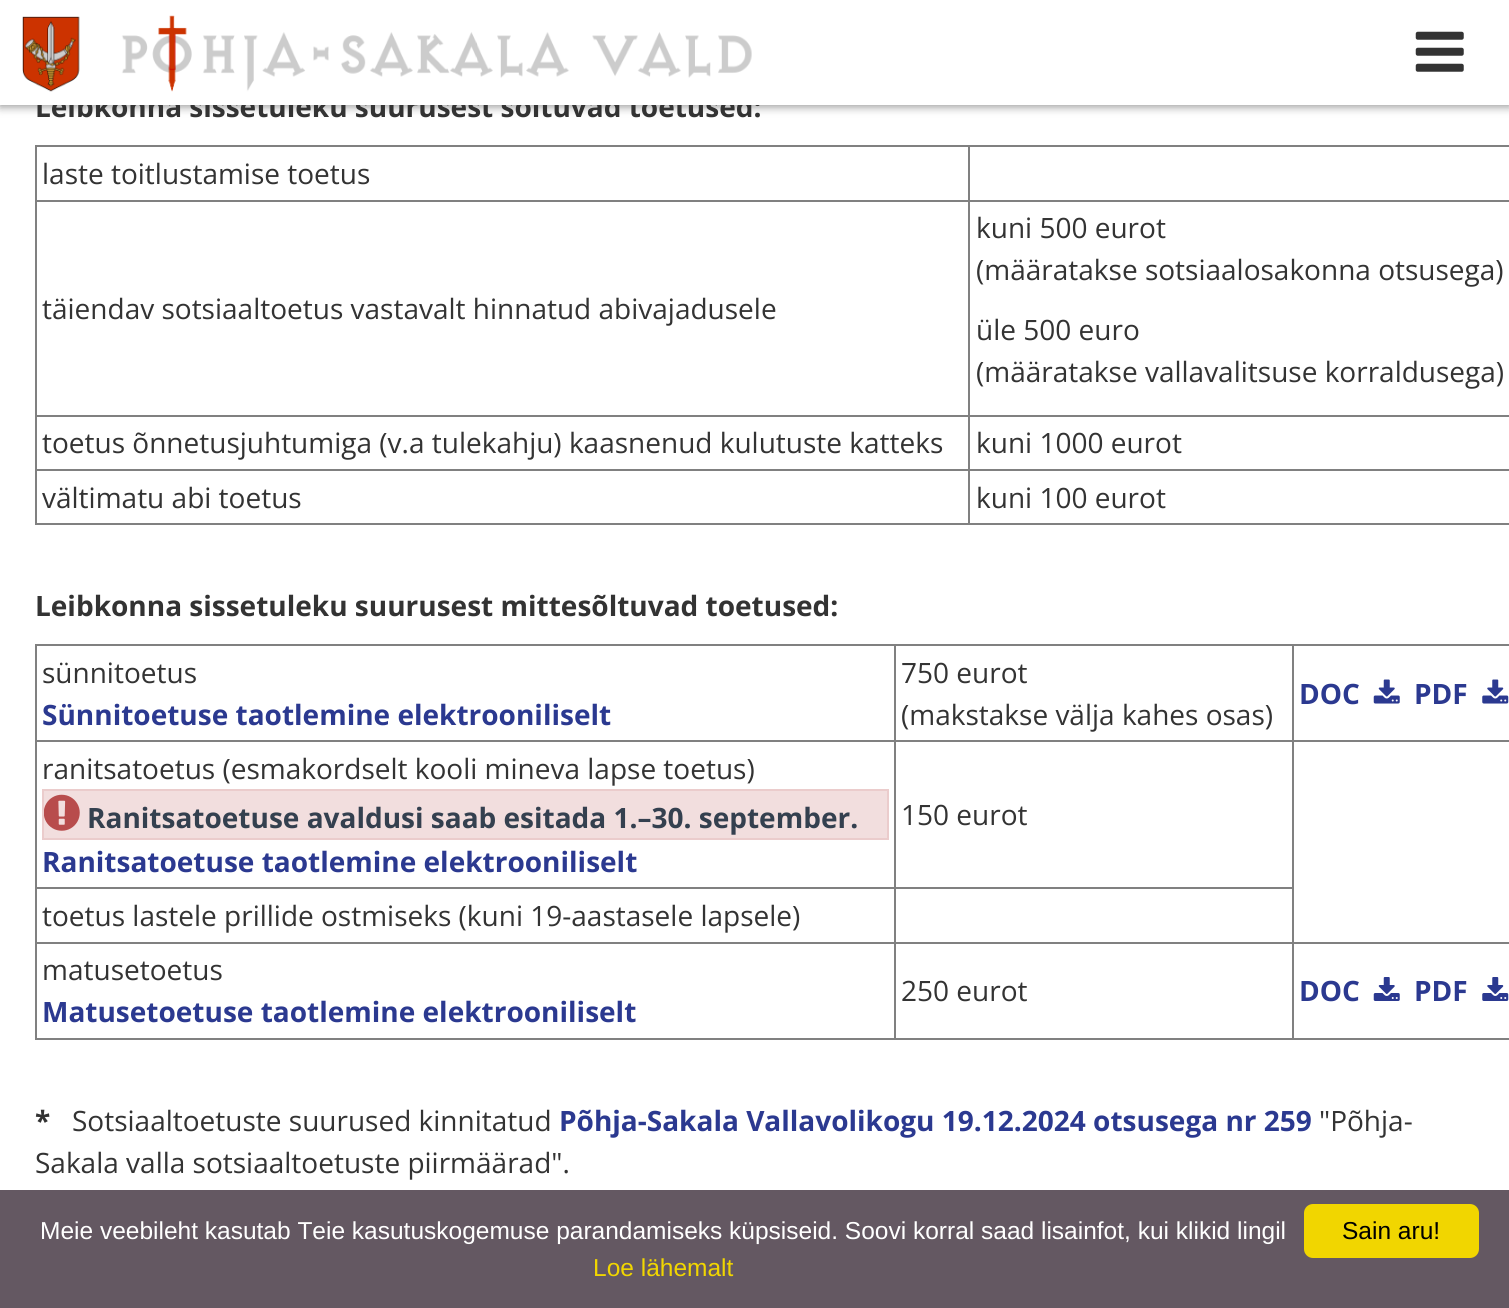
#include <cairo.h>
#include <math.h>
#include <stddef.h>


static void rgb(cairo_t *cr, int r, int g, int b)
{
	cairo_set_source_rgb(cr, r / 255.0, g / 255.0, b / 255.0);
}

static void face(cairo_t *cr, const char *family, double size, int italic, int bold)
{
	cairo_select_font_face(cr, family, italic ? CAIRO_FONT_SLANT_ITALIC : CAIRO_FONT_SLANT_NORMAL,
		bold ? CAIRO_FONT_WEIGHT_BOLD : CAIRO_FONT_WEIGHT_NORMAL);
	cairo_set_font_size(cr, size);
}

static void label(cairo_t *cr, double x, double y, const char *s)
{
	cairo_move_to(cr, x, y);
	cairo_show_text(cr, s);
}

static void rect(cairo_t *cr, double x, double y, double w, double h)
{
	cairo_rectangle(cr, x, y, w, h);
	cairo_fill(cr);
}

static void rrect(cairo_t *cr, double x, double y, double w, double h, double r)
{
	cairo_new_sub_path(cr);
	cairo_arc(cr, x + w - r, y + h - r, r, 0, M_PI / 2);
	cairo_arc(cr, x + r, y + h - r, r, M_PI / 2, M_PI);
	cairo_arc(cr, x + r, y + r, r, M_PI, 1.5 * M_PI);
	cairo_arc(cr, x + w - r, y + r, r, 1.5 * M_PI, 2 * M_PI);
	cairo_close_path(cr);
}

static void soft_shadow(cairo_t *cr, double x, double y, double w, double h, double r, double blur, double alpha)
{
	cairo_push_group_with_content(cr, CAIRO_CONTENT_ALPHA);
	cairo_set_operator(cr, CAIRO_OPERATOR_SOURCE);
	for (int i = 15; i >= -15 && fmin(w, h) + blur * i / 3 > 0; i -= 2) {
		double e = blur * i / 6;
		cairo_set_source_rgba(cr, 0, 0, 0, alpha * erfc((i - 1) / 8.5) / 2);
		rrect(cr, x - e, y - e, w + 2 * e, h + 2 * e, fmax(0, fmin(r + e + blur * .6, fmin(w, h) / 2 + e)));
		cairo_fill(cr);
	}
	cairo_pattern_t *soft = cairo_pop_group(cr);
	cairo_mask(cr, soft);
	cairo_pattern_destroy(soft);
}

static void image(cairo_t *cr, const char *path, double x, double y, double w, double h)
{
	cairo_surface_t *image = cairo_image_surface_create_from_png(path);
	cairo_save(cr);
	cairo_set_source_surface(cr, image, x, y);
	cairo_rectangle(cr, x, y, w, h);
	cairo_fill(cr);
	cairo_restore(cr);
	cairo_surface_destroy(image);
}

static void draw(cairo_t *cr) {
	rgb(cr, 255, 255, 255);
	cairo_paint(cr);
	rgb(cr, 0, 0, 0);
	soft_shadow(cr, 0, 2, 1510, 105, 0, 4.5, 0.4);
	face(cr, "Open Sans", 28, 0, 1);
	rgb(cr, 51, 51, 51);
	label(cr, 35, 117, "Leibkonna sissetuleku suurusest sõltuvad toetused:");
	rgb(cr, 255, 255, 255);
	rect(cr, 0, 0, 1509, 105);
	image(cr, "image0.png", 22, 15, 730, 77);
	image(cr, "image1.png", 1415, 31, 49, 41);
	rgb(cr, 128, 128, 128);
	rect(cr, 35, 145, 1474, 2);
	rect(cr, 35, 523, 1474, 2);
	rect(cr, 35, 145, 2, 380);
	face(cr, "Open Sans", 28, 0, 0);
	rgb(cr, 51, 51, 51);
	label(cr, 42, 184, "laste toitlustamise toetus");
	rgb(cr, 128, 128, 128);
	rect(cr, 968, 200, 541, 2);
	rect(cr, 968, 415, 541, 2);
	rect(cr, 968, 469, 541, 2);
	rect(cr, 968, 469, 2, 56);
	rect(cr, 35, 469, 935, 2);
	rect(cr, 968, 415, 2, 56);
	rect(cr, 35, 415, 935, 2);
	rect(cr, 968, 200, 2, 217);
	rect(cr, 35, 200, 935, 2);
	rect(cr, 968, 145, 2, 56);
	rgb(cr, 51, 51, 51);
	label(cr, 42, 319, "täiendav sotsiaaltoetus vastavalt hinnatud abivajadusele");
	label(cr, 976, 238, "kuni 500 eurot");
	label(cr, 976, 280, "(määratakse sotsiaalosakonna otsusega)");
	label(cr, 976, 340, "üle 500 euro");
	label(cr, 976, 382, "(määratakse vallavalitsuse korraldusega)");
	label(cr, 42, 453, "toetus õnnetusjuhtumiga (v.a tulekahju) kaasnenud kulutuste katteks");
	label(cr, 976, 453, "kuni 1000 eurot");
	label(cr, 42, 508, "vältimatu abi toetus");
	label(cr, 976, 508, "kuni 100 eurot");
	face(cr, "Open Sans", 28, 0, 1);
	label(cr, 35, 616, "Leibkonna sissetuleku suurusest mittesõltuvad toetused:");
	rgb(cr, 128, 128, 128);
	rect(cr, 35, 644, 1474, 2);
	rect(cr, 35, 1038, 1474, 2);
	rect(cr, 35, 644, 2, 396);
	face(cr, "Open Sans", 28, 0, 0);
	rgb(cr, 51, 51, 51);
	label(cr, 42, 683, "sünnitoetus");
	face(cr, "Open Sans", 28, 0, 1);
	rgb(cr, 43, 57, 144);
	label(cr, 42, 725, "Sünnitoetuse taotlemine elektrooniliselt");
	rgb(cr, 128, 128, 128);
	rect(cr, 894, 740, 399, 2);
	rect(cr, 894, 887, 399, 2);
	rect(cr, 1292, 942, 217, 2);
	rect(cr, 1292, 942, 2, 98);
	rect(cr, 894, 942, 399, 2);
	rect(cr, 894, 942, 2, 98);
	rect(cr, 35, 942, 861, 2);
	rect(cr, 894, 887, 2, 56);
	rect(cr, 35, 887, 861, 2);
	rect(cr, 894, 740, 2, 149);
	rect(cr, 35, 740, 861, 2);
	rect(cr, 894, 644, 2, 98);
	face(cr, "Open Sans", 28, 0, 0);
	rgb(cr, 51, 51, 51);
	label(cr, 901, 683, "750 eurot");
	label(cr, 901, 725, "(makstakse välja kahes osas)");
	rgb(cr, 128, 128, 128);
	rect(cr, 1292, 887, 2, 56);
	rect(cr, 1292, 740, 2, 149);
	rect(cr, 1292, 740, 217, 2);
	rect(cr, 1292, 644, 2, 98);
	face(cr, "Open Sans", 28, 0, 1);
	rgb(cr, 43, 57, 144);
	label(cr, 1299, 704, "DOC");
	image(cr, "image2.png", 1373, 679, 27, 25);
	label(cr, 1414, 704, "PDF");
	image(cr, "image3.png", 1482, 679, 27, 25);
	face(cr, "Open Sans", 28, 0, 0);
	rgb(cr, 51, 51, 51);
	label(cr, 42, 779, "ranitsatoetus (esmakordselt kooli mineva lapse toetus)");
	rgb(cr, 242, 222, 222);
	cairo_rectangle(cr, 43, 790, 845, 49);
	cairo_fill_preserve(cr);
	rgb(cr, 235, 204, 204);
	cairo_stroke(cr);
	image(cr, "image4.png", 44, 794, 36, 37);
	face(cr, "Open Sans", 28, 0, 1);
	rgb(cr, 52, 64, 79);
	label(cr, 87, 828, "Ranitsatoetuse avaldusi saab esitada 1.–30. september.");
	rgb(cr, 43, 57, 144);
	label(cr, 42, 872, "Ranitsatoetuse taotlemine elektrooniliselt");
	face(cr, "Open Sans", 28, 0, 0);
	rgb(cr, 51, 51, 51);
	label(cr, 901, 825, "150 eurot");
	label(cr, 42, 926, "toetus lastele prillide ostmiseks (kuni 19-aastasele lapsele)");
	label(cr, 42, 980, "matusetoetus");
	face(cr, "Open Sans", 28, 0, 1);
	rgb(cr, 43, 57, 144);
	label(cr, 42, 1022, "Matusetoetuse taotlemine elektrooniliselt");
	face(cr, "Open Sans", 28, 0, 0);
	rgb(cr, 51, 51, 51);
	label(cr, 901, 1001, "250 eurot");
	face(cr, "Open Sans", 28, 0, 1);
	rgb(cr, 43, 57, 144);
	label(cr, 1299, 1001, "DOC");
	image(cr, "image5.png", 1373, 977, 27, 24);
	label(cr, 1414, 1001, "PDF");
	image(cr, "image6.png", 1482, 977, 27, 24);
	rgb(cr, 51, 51, 51);
	label(cr, 35, 1131, "*");
	face(cr, "Open Sans", 28, 0, 0);
	label(cr, 72, 1131, "Sotsiaaltoetuste suurused kinnitatud");
	face(cr, "Open Sans", 28, 0, 1);
	rgb(cr, 43, 57, 144);
	label(cr, 559, 1131, "Põhja-Sakala Vallavolikogu 19.12.2024 otsusega nr 259");
	face(cr, "Open Sans", 28, 0, 0);
	rgb(cr, 51, 51, 51);
	label(cr, 1319, 1131, "\"Põhja-");
	label(cr, 35, 1173, "Sakala valla sotsiaaltoetuste piirmäärad\".");
	rgb(cr, 100, 88, 98);
	rect(cr, 0, 1190, 1509, 118);
	face(cr, "Liberation Sans", 24.5, 0, 0);
	rgb(cr, 255, 255, 255);
	label(cr, 40, 1239, "Meie veebileht kasutab Teie kasutuskogemuse parandamiseks küpsiseid. Soovi korral saad lisainfot, kui klikid lingil");
	rgb(cr, 241, 214, 0);
	label(cr, 593, 1276, "Loe lähemalt");
	rrect(cr, 1304, 1204, 175, 54, 9);
	cairo_fill(cr);
	rgb(cr, 0, 0, 0);
	label(cr, 1342, 1239, "Sain aru!");
}

int main(void) {
	cairo_surface_t *surface = cairo_image_surface_create(CAIRO_FORMAT_RGB24, 1509, 1308);
	cairo_t *cr = cairo_create(surface);
	cairo_font_options_t *options = cairo_font_options_create();
	cairo_font_options_set_hint_metrics(options, CAIRO_HINT_METRICS_OFF);
	cairo_font_options_set_hint_style(options, CAIRO_HINT_STYLE_NONE);
	cairo_set_font_options(cr, options);
	cairo_set_miter_limit(cr, 4);
	draw(cr);
	cairo_surface_write_to_png(surface, "render.png");
	cairo_font_options_destroy(options);
	cairo_destroy(cr);
	cairo_surface_destroy(surface);
	return 0;
}
